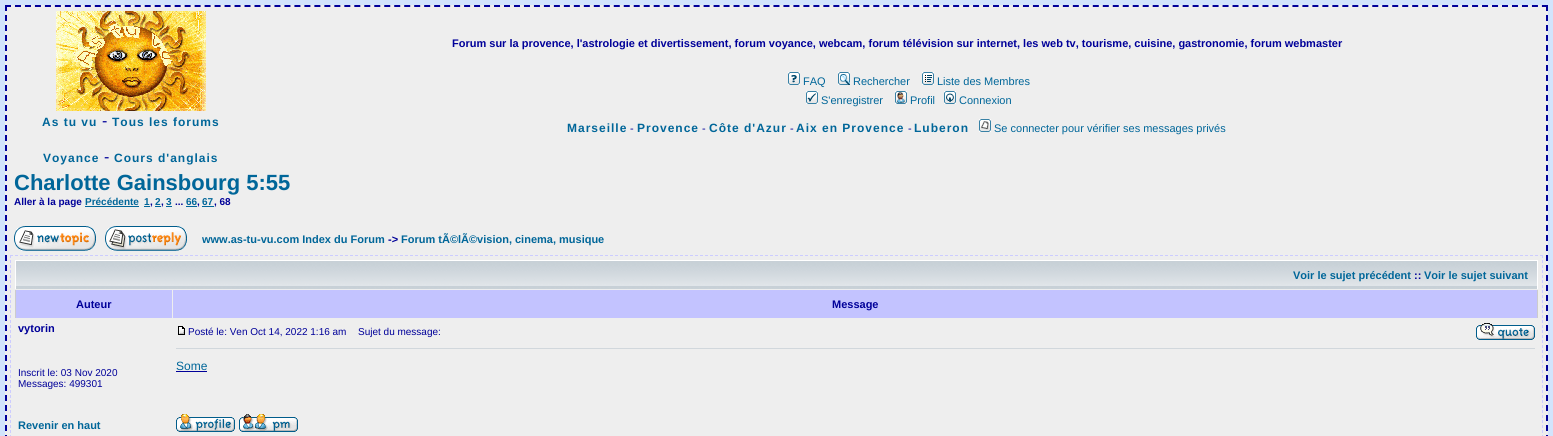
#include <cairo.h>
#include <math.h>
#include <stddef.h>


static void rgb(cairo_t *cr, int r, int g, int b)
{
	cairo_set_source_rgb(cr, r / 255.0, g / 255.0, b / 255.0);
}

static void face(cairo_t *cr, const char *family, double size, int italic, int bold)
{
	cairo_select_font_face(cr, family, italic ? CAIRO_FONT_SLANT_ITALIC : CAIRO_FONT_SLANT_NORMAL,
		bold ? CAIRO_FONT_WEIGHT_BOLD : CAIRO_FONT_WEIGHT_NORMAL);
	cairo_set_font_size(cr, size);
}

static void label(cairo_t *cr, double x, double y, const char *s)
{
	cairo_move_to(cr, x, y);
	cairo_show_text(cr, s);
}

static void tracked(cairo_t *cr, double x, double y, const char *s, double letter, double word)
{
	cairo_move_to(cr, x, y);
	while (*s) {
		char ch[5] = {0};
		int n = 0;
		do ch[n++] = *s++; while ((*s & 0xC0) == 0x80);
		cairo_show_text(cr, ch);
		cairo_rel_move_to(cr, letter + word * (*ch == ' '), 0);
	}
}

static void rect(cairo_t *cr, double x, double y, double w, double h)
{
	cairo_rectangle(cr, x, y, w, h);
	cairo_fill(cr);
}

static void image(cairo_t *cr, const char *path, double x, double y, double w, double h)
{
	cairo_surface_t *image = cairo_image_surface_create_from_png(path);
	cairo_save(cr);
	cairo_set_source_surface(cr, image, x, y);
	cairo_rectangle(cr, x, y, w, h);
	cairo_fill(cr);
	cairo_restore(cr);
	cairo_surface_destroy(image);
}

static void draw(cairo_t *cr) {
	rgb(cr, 210, 228, 252);
	cairo_paint(cr);
	rgb(cr, 238, 238, 238);
	rect(cr, 5, 5, 1543, 431);
	cairo_new_path(cr);
	cairo_move_to(cr, 5, 6);
	cairo_line_to(cr, 1548, 6);
	rgb(cr, 0, 0, 153);
	cairo_set_dash(cr, (double[]){6, 3.98}, 2, 0);
	cairo_stroke(cr);
	cairo_new_path(cr);
	cairo_move_to(cr, 1547, 5);
	cairo_line_to(cr, 1547, 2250);
	cairo_set_dash(cr, (double[]){6, 4}, 2, 0);
	cairo_stroke(cr);
	cairo_new_path(cr);
	cairo_move_to(cr, 6, 5);
	cairo_line_to(cr, 6, 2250);
	cairo_stroke(cr);
	face(cr, "Liberation Sans", 11, 0, 1);
	label(cr, 452, 47, "Forum sur la provence, l'astrologie et divertissement, forum voyance, webcam, forum télévision sur internet, les web tv, tourisme, cuisine, gastronomie, forum webmaster");
	image(cr, "image0.png", 788, 72, 12, 13);
	face(cr, "Liberation Sans", 11, 0, 0);
	rgb(cr, 0, 102, 153);
	label(cr, 803, 85, "FAQ");
	image(cr, "image1.png", 838, 72, 12, 13);
	label(cr, 853, 85, "Rechercher");
	image(cr, "image2.png", 922, 72, 12, 13);
	label(cr, 937, 85, "Liste des Membres");
	image(cr, "image3.png", 806, 91, 12, 13);
	label(cr, 821, 104, "S'enregistrer");
	image(cr, "image4.png", 895, 91, 12, 13);
	label(cr, 910, 104, "Profil");
	image(cr, "image5.png", 944, 91, 12, 13);
	label(cr, 959, 104, "Connexion");
	face(cr, "Liberation Sans", 12, 0, 1);
	tracked(cr, 567, 132, "Marseille", 1, 0);
	face(cr, "Liberation Sans", 11, 0, 0);
	rgb(cr, 0, 0, 153);
	label(cr, 630, 132, "-");
	face(cr, "Liberation Sans", 12, 0, 1);
	rgb(cr, 0, 102, 153);
	tracked(cr, 637, 132, "Provence", 1, 0);
	face(cr, "Liberation Sans", 11, 0, 0);
	rgb(cr, 0, 0, 153);
	label(cr, 702, 132, "-");
	face(cr, "Liberation Sans", 12, 0, 1);
	rgb(cr, 0, 102, 153);
	tracked(cr, 709, 132, "Côte d'Azur", 1, 0);
	face(cr, "Liberation Sans", 11, 0, 0);
	rgb(cr, 0, 0, 153);
	label(cr, 790, 132, "-");
	face(cr, "Liberation Sans", 12, 0, 1);
	rgb(cr, 0, 102, 153);
	tracked(cr, 796, 132, "Aix en Provence", 1, 0);
	face(cr, "Liberation Sans", 11, 0, 0);
	rgb(cr, 0, 0, 153);
	label(cr, 908, 132, "-");
	face(cr, "Liberation Sans", 12, 0, 1);
	rgb(cr, 0, 102, 153);
	tracked(cr, 914, 132, "Luberon", 1, 0);
	image(cr, "image6.png", 979, 119, 12, 13);
	face(cr, "Liberation Sans", 11, 0, 0);
	label(cr, 994, 132, "Se connecter pour vérifier ses messages privés");
	image(cr, "image7.png", 56, 11, 150, 100);
	face(cr, "Liberation Sans", 12, 0, 1);
	tracked(cr, 42, 126, "As tu vu", 1, 0);
	face(cr, "Liberation Sans", 16, 0, 0);
	rgb(cr, 0, 0, 153);
	label(cr, 102, 126, "-");
	face(cr, "Liberation Sans", 12, 0, 1);
	rgb(cr, 0, 102, 153);
	tracked(cr, 112, 126, "Tous les forums", 1, 0);
	tracked(cr, 43, 162, "Voyance", 1, 0);
	face(cr, "Liberation Sans", 16, 0, 0);
	rgb(cr, 0, 0, 153);
	label(cr, 104, 162, "-");
	face(cr, "Liberation Sans", 12, 0, 1);
	rgb(cr, 0, 102, 153);
	tracked(cr, 114, 162, "Cours d'anglais", 1, 0);
	face(cr, "Liberation Sans", 22, 0, 1);
	label(cr, 14, 190, "Charlotte Gainsbourg 5:55");
	face(cr, "Liberation Sans", 10, 0, 1);
	rgb(cr, 0, 0, 153);
	label(cr, 14, 205, "Aller à la page");
	rgb(cr, 0, 102, 153);
	label(cr, 85, 205, "Précédente");
	rect(cr, 85, 206, 54, 1);
	label(cr, 144, 205, "1");
	rgb(cr, 0, 0, 153);
	label(cr, 150, 205, ",");
	rgb(cr, 0, 102, 153);
	rect(cr, 144, 206, 6, 1);
	label(cr, 155, 205, "2");
	rgb(cr, 0, 0, 153);
	label(cr, 161, 205, ",");
	rgb(cr, 0, 102, 153);
	rect(cr, 155, 206, 6, 1);
	rect(cr, 166, 206, 6, 1);
	label(cr, 166, 205, "3");
	rgb(cr, 0, 0, 153);
	label(cr, 175, 205, "...");
	rgb(cr, 0, 102, 153);
	label(cr, 186, 205, "66");
	rgb(cr, 0, 0, 153);
	label(cr, 197, 205, ",");
	rgb(cr, 0, 102, 153);
	rect(cr, 186, 206, 11, 1);
	rect(cr, 202, 206, 12, 1);
	label(cr, 202, 205, "67");
	rgb(cr, 0, 0, 153);
	label(cr, 214, 205, ", 68");
	image(cr, "image8.png", 14, 226, 82, 25);
	image(cr, "image9.png", 105, 226, 82, 25);
	face(cr, "Liberation Sans", 11, 0, 1);
	rgb(cr, 0, 102, 153);
	label(cr, 202, 243, "www.as-tu-vu.com Index du Forum");
	rgb(cr, 0, 0, 153);
	label(cr, 388, 243, "->");
	rgb(cr, 0, 102, 153);
	label(cr, 401, 243, "Forum tÃ©lÃ©vision, cinema, musique");
	cairo_new_path(cr);
	cairo_move_to(cr, 10, 255.5);
	cairo_line_to(cr, 1543, 255.5);
	rgb(cr, 204, 204, 255);
	cairo_set_line_width(cr, 1);
	cairo_set_dash(cr, (double[]){3, 2}, 2, 0);
	cairo_stroke(cr);
	cairo_new_path(cr);
	cairo_move_to(cr, 1542.5, 255);
	cairo_line_to(cr, 1542.5, 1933);
	cairo_stroke(cr);
	cairo_new_path(cr);
	cairo_move_to(cr, 10.5, 255);
	cairo_line_to(cr, 10.5, 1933);
	cairo_stroke(cr);
	image(cr, "image10.png", 16, 261, 1521, 28);
	rgb(cr, 255, 255, 255);
	rect(cr, 15, 260, 1523, 1);
	rect(cr, 1537, 260, 1, 29);
	rect(cr, 15, 260, 1, 29);
	rgb(cr, 0, 102, 153);
	label(cr, 1293, 279, "Voir le sujet précédent");
	rgb(cr, 0, 0, 153);
	label(cr, 1414, 279, "::");
	rgb(cr, 0, 102, 153);
	label(cr, 1424, 279, "Voir le sujet suivant");
	rgb(cr, 195, 195, 255);
	rect(cr, 16, 290, 156, 28);
	rgb(cr, 204, 204, 204);
	rect(cr, 15, 290, 1, 28);
	rgb(cr, 0, 0, 153);
	label(cr, 76, 308, "Auteur");
	rgb(cr, 195, 195, 255);
	rect(cr, 173, 290, 1364, 28);
	rgb(cr, 204, 204, 204);
	rect(cr, 1537, 290, 1, 28);
	rgb(cr, 0, 0, 153);
	label(cr, 832, 308, "Message");
	label(cr, 18, 332, "vytorin");
	face(cr, "Liberation Sans", 10, 0, 0);
	label(cr, 18, 376, "Inscrit le: 03 Nov 2020");
	label(cr, 18, 387, "Messages: 499301");
	image(cr, "image11.png", 178, 326, 7, 9);
	label(cr, 188, 335, "Posté le: Ven Oct 14, 2022 1:16 am");
	label(cr, 358, 335, "Sujet du message:");
	image(cr, "image12.png", 1476, 323, 59, 17);
	rgb(cr, 209, 215, 220);
	rect(cr, 176, 348, 1359, 1);
	face(cr, "Liberation Sans", 12, 0, 0);
	rgb(cr, 0, 102, 153);
	label(cr, 176, 370, "Some");
	rgb(cr, 0, 0, 153);
	rect(cr, 176, 371, 31, 1);
	face(cr, "Liberation Sans", 11, 0, 1);
	rgb(cr, 0, 102, 153);
	label(cr, 18, 429, "Revenir en haut");
	image(cr, "image13.png", 176, 414, 59, 18);
	image(cr, "image14.png", 239, 414, 59, 18);
}

int main(void) {
	cairo_surface_t *surface = cairo_image_surface_create(CAIRO_FORMAT_RGB24, 1553, 436);
	cairo_t *cr = cairo_create(surface);
	cairo_font_options_t *options = cairo_font_options_create();
	cairo_font_options_set_hint_metrics(options, CAIRO_HINT_METRICS_OFF);
	cairo_font_options_set_hint_style(options, CAIRO_HINT_STYLE_NONE);
	cairo_set_font_options(cr, options);
	cairo_set_miter_limit(cr, 4);
	draw(cr);
	cairo_surface_write_to_png(surface, "render.png");
	cairo_font_options_destroy(options);
	cairo_destroy(cr);
	cairo_surface_destroy(surface);
	return 0;
}
